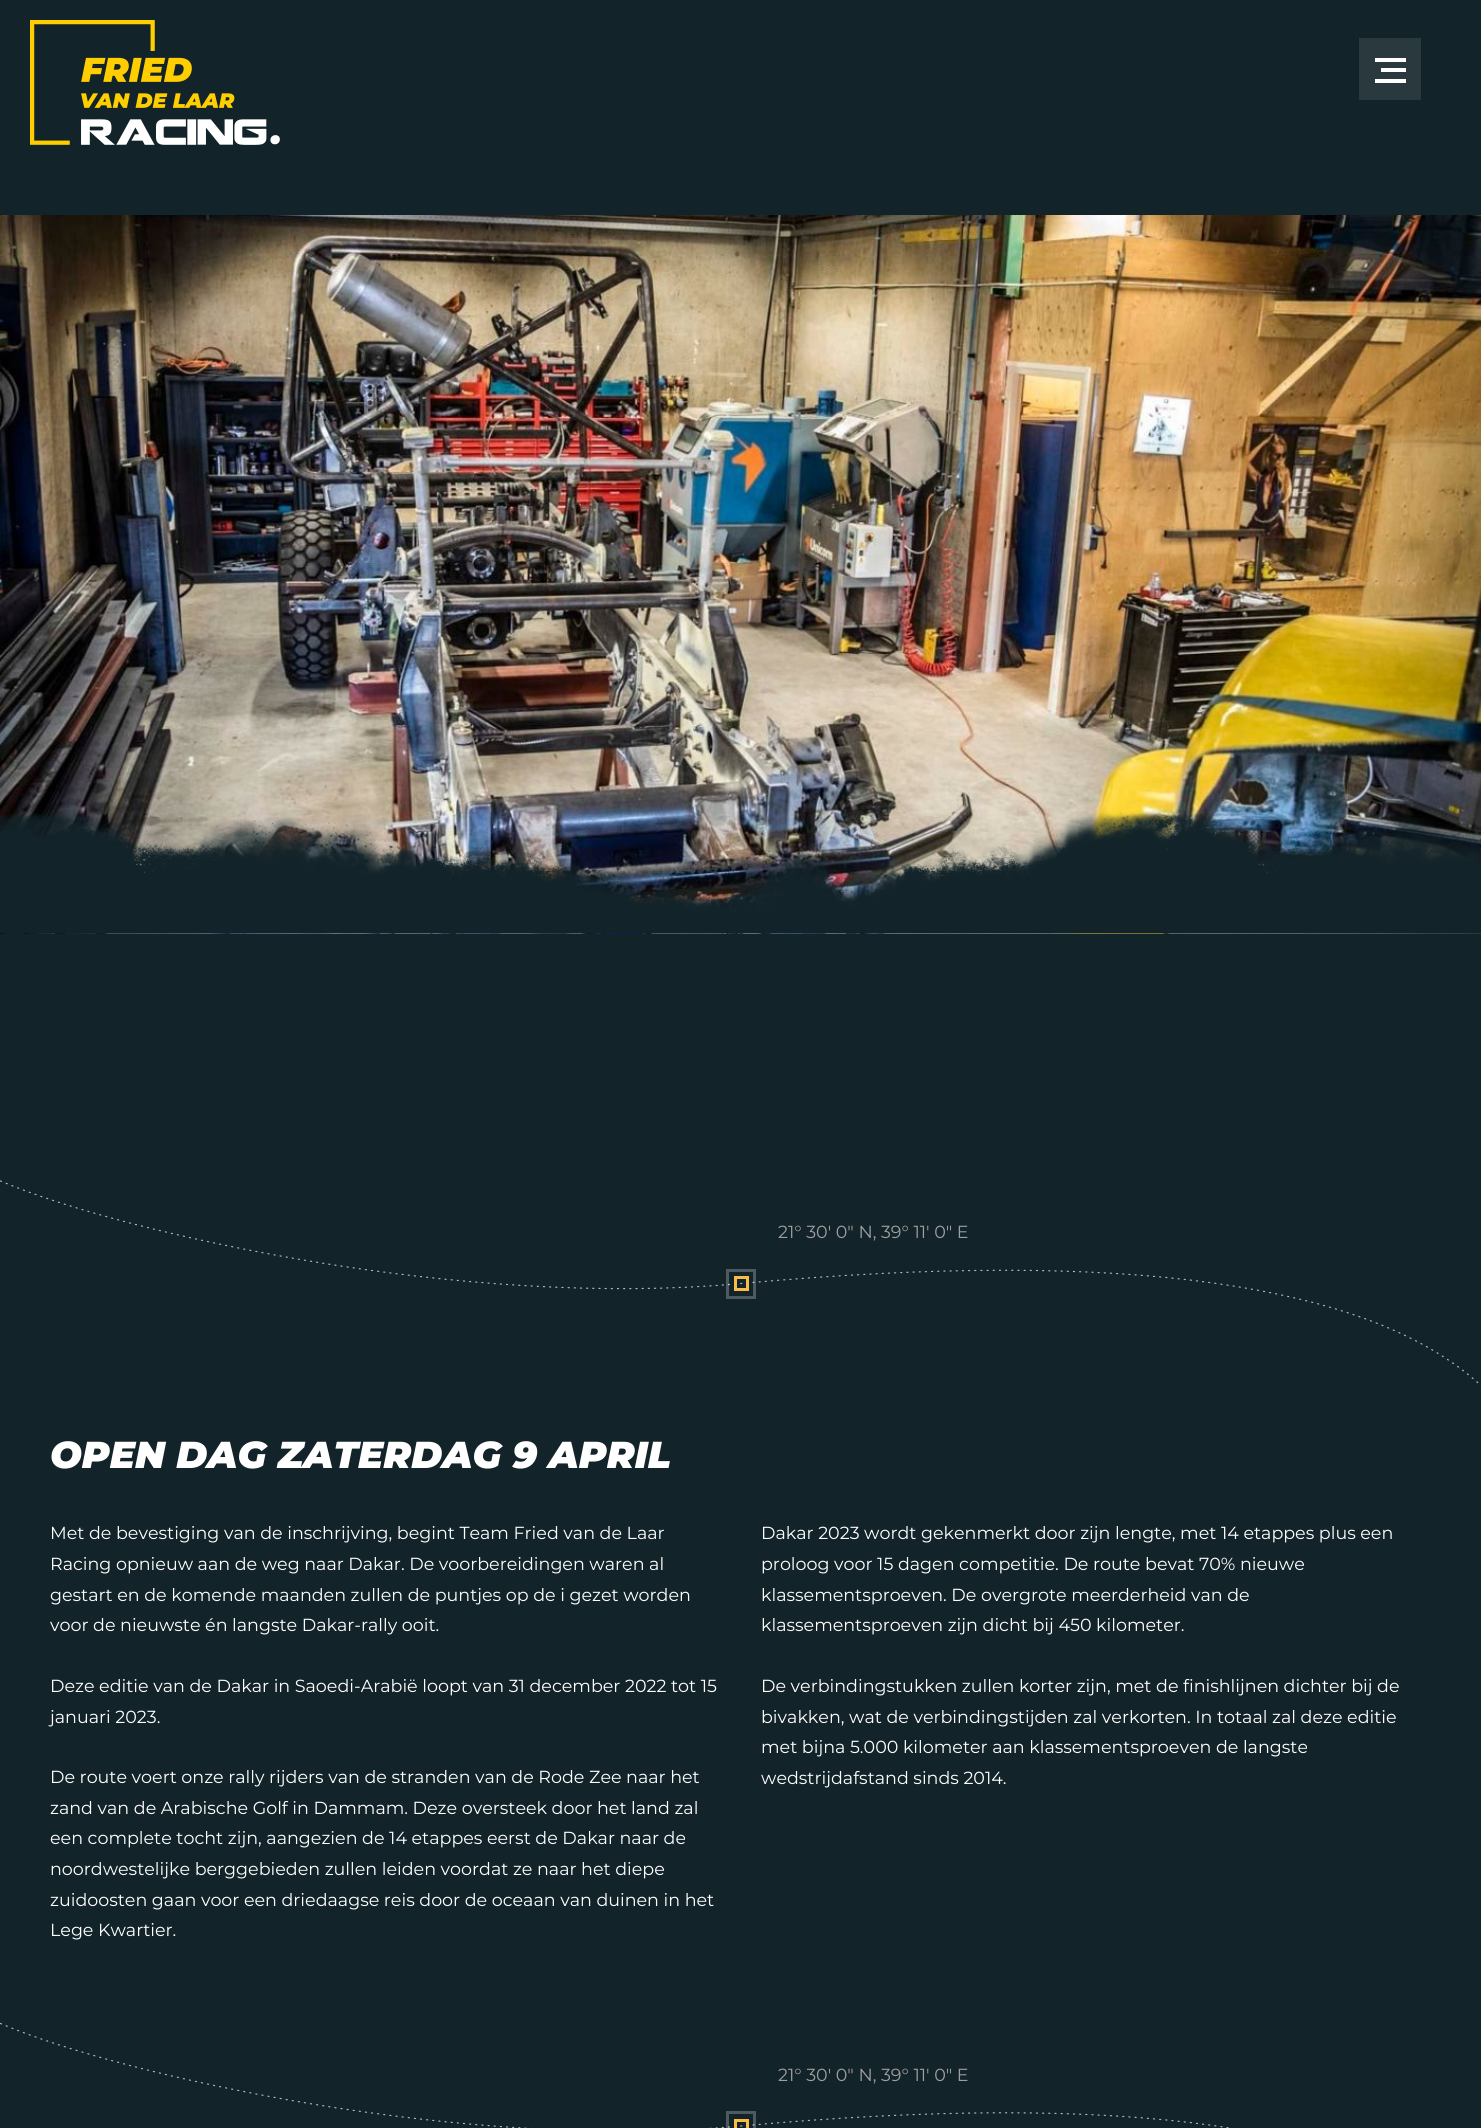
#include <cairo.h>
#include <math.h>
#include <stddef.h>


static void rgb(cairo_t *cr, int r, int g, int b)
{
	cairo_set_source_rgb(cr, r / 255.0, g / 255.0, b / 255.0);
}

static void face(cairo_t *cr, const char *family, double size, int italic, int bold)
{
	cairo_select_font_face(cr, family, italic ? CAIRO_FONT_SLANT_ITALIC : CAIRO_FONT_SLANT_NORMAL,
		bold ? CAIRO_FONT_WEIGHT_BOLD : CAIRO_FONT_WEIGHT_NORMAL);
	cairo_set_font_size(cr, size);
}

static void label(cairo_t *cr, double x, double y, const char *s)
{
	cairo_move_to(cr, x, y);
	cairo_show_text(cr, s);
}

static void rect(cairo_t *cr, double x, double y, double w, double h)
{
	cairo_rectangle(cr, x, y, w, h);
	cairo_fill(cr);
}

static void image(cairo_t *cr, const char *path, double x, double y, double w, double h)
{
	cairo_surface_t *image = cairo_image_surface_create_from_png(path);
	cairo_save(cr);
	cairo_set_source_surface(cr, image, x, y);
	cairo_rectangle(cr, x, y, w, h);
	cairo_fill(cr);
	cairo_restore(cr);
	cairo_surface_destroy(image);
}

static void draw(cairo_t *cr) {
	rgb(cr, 18, 35, 41);
	cairo_paint(cr);
	image(cr, "image0.png", 30, 20, 250, 125);
	rgb(cr, 42, 57, 62);
	rect(cr, 1359, 38, 62, 62);
	rgb(cr, 255, 255, 255);
	rect(cr, 1375, 58, 31, 4);
	rect(cr, 1381, 68, 25, 4);
	rect(cr, 1375, 79, 31, 4);
	image(cr, "image1.png", 0, 215, 1481, 719);
	image(cr, "image2.png", 0, 809, 1481, 125);
	cairo_new_path(cr);
	cairo_move_to(cr, 0.5, 1181);
	cairo_curve_to(cr, 126.5, 1234.5, 465, 1309, 741, 1283.5);
	cairo_curve_to(cr, 1124.5, 1248.5, 1371, 1283, 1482, 1386.5);
	rgb(cr, 180, 185, 187);
	cairo_set_line_width(cr, 1.2);
	cairo_set_line_cap(cr, CAIRO_LINE_CAP_ROUND);
	cairo_set_dash(cr, (double[]){1.03, 5.14}, 2, 0);
	cairo_stroke(cr);
	cairo_rectangle(cr, 727.5, 1270.5, 27, 27);
	cairo_set_source_rgba(cr, 1, 1, 1, 0.25);
	cairo_set_line_width(cr, 3);
	cairo_set_line_cap(cr, CAIRO_LINE_CAP_BUTT);
	cairo_set_dash(cr, NULL, 0, 0);
	cairo_stroke(cr);
	face(cr, "Montserrat Thin", 17.5, 0, 0);
	rgb(cr, 159, 159, 159);
	label(cr, 778, 1238, "21° 30′ 0″ N, 39° 11′ 0″ E");
	cairo_rectangle(cr, 735.5, 1277.5, 12, 12);
	rgb(cr, 251, 188, 70);
	cairo_stroke(cr);
	face(cr, "Montserrat Thin", 37.5, 1, 0);
	rgb(cr, 255, 255, 255);
	label(cr, 50, 1468, "OPEN DAG ZATERDAG 9 APRIL");
	face(cr, "Montserrat Thin", 17.5, 0, 0);
	label(cr, 50, 1539, "Met de bevestiging van de inschrijving, begint Team Fried van de Laar");
	label(cr, 50, 1570, "Racing opnieuw aan de weg naar Dakar. De voorbereidingen waren al");
	label(cr, 50, 1601, "gestart en de komende maanden zullen de puntjes op de i gezet worden");
	label(cr, 50, 1631, "voor de nieuwste én langste Dakar-rally ooit.");
	label(cr, 50, 1692, "Deze editie van de Dakar in Saoedi-Arabië loopt van 31 december 2022 tot 15");
	label(cr, 50, 1723, "januari 2023.");
	label(cr, 50, 1783, "De route voert onze rally rijders van de stranden van de Rode Zee naar het");
	label(cr, 50, 1814, "zand van de Arabische Golf in Dammam. Deze oversteek door het land zal");
	label(cr, 50, 1844, "een complete tocht zijn, aangezien de 14 etappes eerst de Dakar naar de");
	label(cr, 50, 1875, "noordwestelijke berggebieden zullen leiden voordat ze naar het diepe");
	label(cr, 50, 1906, "zuidoosten gaan voor een driedaagse reis door de oceaan van duinen in het");
	label(cr, 50, 1936, "Lege Kwartier.");
	label(cr, 761, 1539, "Dakar 2023 wordt gekenmerkt door zijn lengte, met 14 etappes plus een");
	label(cr, 761, 1570, "proloog voor 15 dagen competitie. De route bevat 70% nieuwe");
	label(cr, 761, 1601, "klassementsproeven. De overgrote meerderheid van de");
	label(cr, 761, 1631, "klassementsproeven zijn dicht bij 450 kilometer.");
	label(cr, 761, 1692, "De verbindingstukken zullen korter zijn, met de finishlijnen dichter bij de");
	label(cr, 761, 1723, "bivakken, wat de verbindingstijden zal verkorten. In totaal zal deze editie");
	label(cr, 761, 1753, "met bijna 5.000 kilometer aan klassementsproeven de langste");
	label(cr, 761, 1784, "wedstrijdafstand sinds 2014.");
	cairo_new_path(cr);
	cairo_move_to(cr, 0.5, 2023.5);
	cairo_curve_to(cr, 126.5, 2077, 465, 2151.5, 741, 2126);
	cairo_curve_to(cr, 1124.5, 2091, 1371, 2125.5, 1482, 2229);
	rgb(cr, 180, 185, 187);
	cairo_set_line_width(cr, 1.2);
	cairo_set_line_cap(cr, CAIRO_LINE_CAP_ROUND);
	cairo_set_dash(cr, (double[]){1.03, 5.14}, 2, 0);
	cairo_stroke(cr);
	cairo_rectangle(cr, 727.5, 2112.5, 27, 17);
	cairo_set_source_rgba(cr, 1, 1, 1, 0.25);
	cairo_set_line_width(cr, 3);
	cairo_set_line_cap(cr, CAIRO_LINE_CAP_BUTT);
	cairo_set_dash(cr, NULL, 0, 0);
	cairo_stroke(cr);
	rgb(cr, 159, 159, 159);
	label(cr, 778, 2081, "21° 30′ 0″ N, 39° 11′ 0″ E");
	cairo_rectangle(cr, 735.5, 2120.5, 12, 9);
	rgb(cr, 251, 188, 70);
	cairo_stroke(cr);
}

int main(void) {
	cairo_surface_t *surface = cairo_image_surface_create(CAIRO_FORMAT_RGB24, 1481, 2128);
	cairo_t *cr = cairo_create(surface);
	cairo_font_options_t *options = cairo_font_options_create();
	cairo_font_options_set_hint_metrics(options, CAIRO_HINT_METRICS_OFF);
	cairo_font_options_set_hint_style(options, CAIRO_HINT_STYLE_NONE);
	cairo_set_font_options(cr, options);
	cairo_set_miter_limit(cr, 4);
	draw(cr);
	cairo_surface_write_to_png(surface, "render.png");
	cairo_font_options_destroy(options);
	cairo_destroy(cr);
	cairo_surface_destroy(surface);
	return 0;
}
